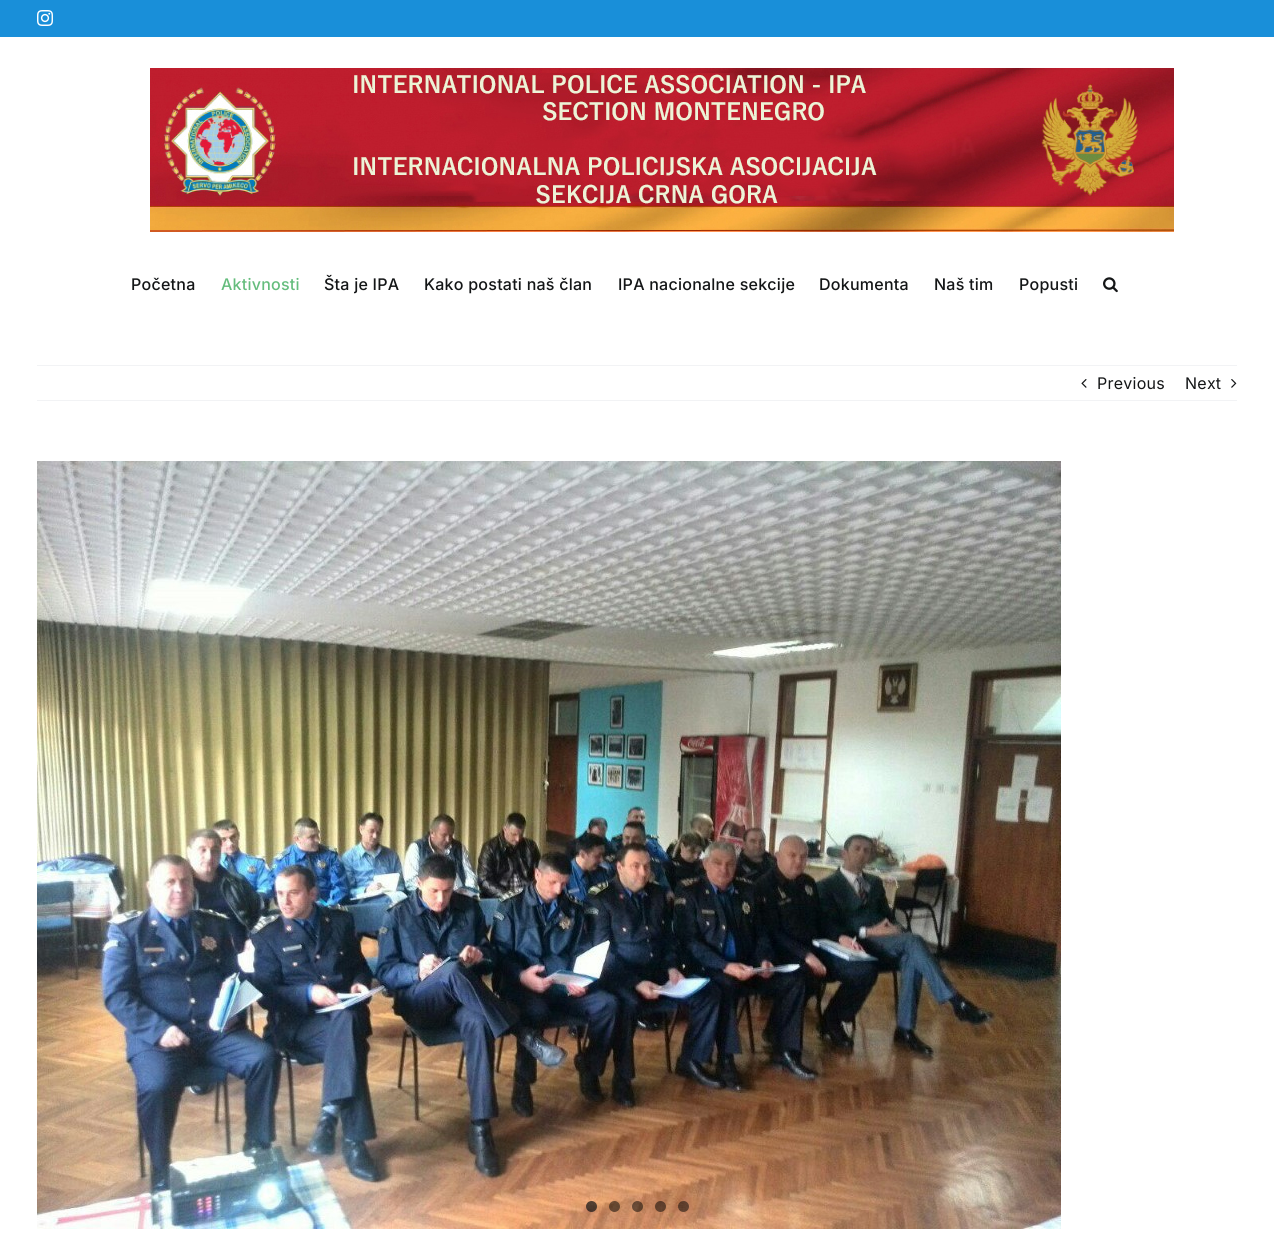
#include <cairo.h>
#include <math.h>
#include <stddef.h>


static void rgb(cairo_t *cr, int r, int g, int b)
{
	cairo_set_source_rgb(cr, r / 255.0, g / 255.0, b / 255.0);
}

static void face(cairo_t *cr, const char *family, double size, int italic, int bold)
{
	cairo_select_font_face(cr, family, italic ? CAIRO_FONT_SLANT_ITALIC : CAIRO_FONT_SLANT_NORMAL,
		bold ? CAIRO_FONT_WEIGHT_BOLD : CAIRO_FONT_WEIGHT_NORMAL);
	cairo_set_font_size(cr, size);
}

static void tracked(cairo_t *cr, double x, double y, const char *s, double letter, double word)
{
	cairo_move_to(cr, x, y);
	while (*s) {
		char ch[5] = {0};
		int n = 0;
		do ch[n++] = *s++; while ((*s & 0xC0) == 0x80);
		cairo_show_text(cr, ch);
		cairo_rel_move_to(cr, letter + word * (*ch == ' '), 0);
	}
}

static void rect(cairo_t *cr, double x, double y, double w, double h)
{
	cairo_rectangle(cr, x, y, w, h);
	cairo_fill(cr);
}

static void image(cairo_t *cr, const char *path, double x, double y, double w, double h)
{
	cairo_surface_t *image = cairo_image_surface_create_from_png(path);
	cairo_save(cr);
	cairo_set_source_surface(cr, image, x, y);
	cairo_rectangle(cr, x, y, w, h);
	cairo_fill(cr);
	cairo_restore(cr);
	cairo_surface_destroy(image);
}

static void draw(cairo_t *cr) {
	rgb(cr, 255, 255, 255);
	cairo_paint(cr);
	rgb(cr, 25, 143, 217);
	rect(cr, 0, 0, 1274, 37);
	image(cr, "image0.png", 37, 10, 16, 16);
	image(cr, "image1.png", 150, 68, 1024, 164);
	face(cr, "Inter Medium", 16, 0, 0);
	rgb(cr, 20, 22, 23);
	tracked(cr, 131, 290, "Početna", 0.25, 0);
	rgb(cr, 101, 189, 125);
	tracked(cr, 221, 290, "Aktivnosti", 0.25, 0);
	rgb(cr, 20, 22, 23);
	tracked(cr, 324, 290, "Šta je IPA", 0.25, 0);
	tracked(cr, 424, 290, "Kako postati naš član", 0.25, 0);
	tracked(cr, 618, 290, "IPA nacionalne sekcije", 0.25, 0);
	tracked(cr, 819, 290, "Dokumenta", 0.25, 0);
	tracked(cr, 934, 290, "Naš tim", 0.25, 0);
	tracked(cr, 1019, 290, "Popusti", 0.25, 0);
	image(cr, "image2.png", 1103, 277, 15, 16);
	rgb(cr, 242, 243, 245);
	rect(cr, 37, 365, 1200, 1);
	rect(cr, 37, 400, 1200, 1);
	image(cr, "image3.png", 1081, 379, 6, 9);
	face(cr, "Inter", 16, 0, 0);
	rgb(cr, 20, 22, 23);
	tracked(cr, 1097, 389, "Previous", 0.25, 0);
	tracked(cr, 1185, 389, "Next", 0.25, 0);
	image(cr, "image4.png", 1231, 379, 6, 9);
	image(cr, "image5.png", 37, 461, 1024, 768);
	cairo_set_source_rgba(cr, 0.075, 0.082, 0.086, 0.7);
	cairo_arc(cr, 591.5, 1206.5, 5.5, 0, 2 * M_PI);
	cairo_fill(cr);
	cairo_set_source_rgba(cr, 0, 0, 0, 0.5);
	cairo_arc(cr, 614.5, 1206.5, 5.5, 0, 2 * M_PI);
	cairo_fill(cr);
	cairo_arc(cr, 637.5, 1206.5, 5.5, 0, 2 * M_PI);
	cairo_fill(cr);
	cairo_arc(cr, 660.5, 1206.5, 5.5, 0, 2 * M_PI);
	cairo_fill(cr);
	cairo_arc(cr, 683.5, 1206.5, 5.5, 0, 2 * M_PI);
	cairo_fill(cr);
}

int main(void) {
	cairo_surface_t *surface = cairo_image_surface_create(CAIRO_FORMAT_RGB24, 1274, 1259);
	cairo_t *cr = cairo_create(surface);
	cairo_font_options_t *options = cairo_font_options_create();
	cairo_font_options_set_hint_metrics(options, CAIRO_HINT_METRICS_OFF);
	cairo_font_options_set_hint_style(options, CAIRO_HINT_STYLE_NONE);
	cairo_set_font_options(cr, options);
	cairo_set_miter_limit(cr, 4);
	draw(cr);
	cairo_surface_write_to_png(surface, "render.png");
	cairo_font_options_destroy(options);
	cairo_destroy(cr);
	cairo_surface_destroy(surface);
	return 0;
}
